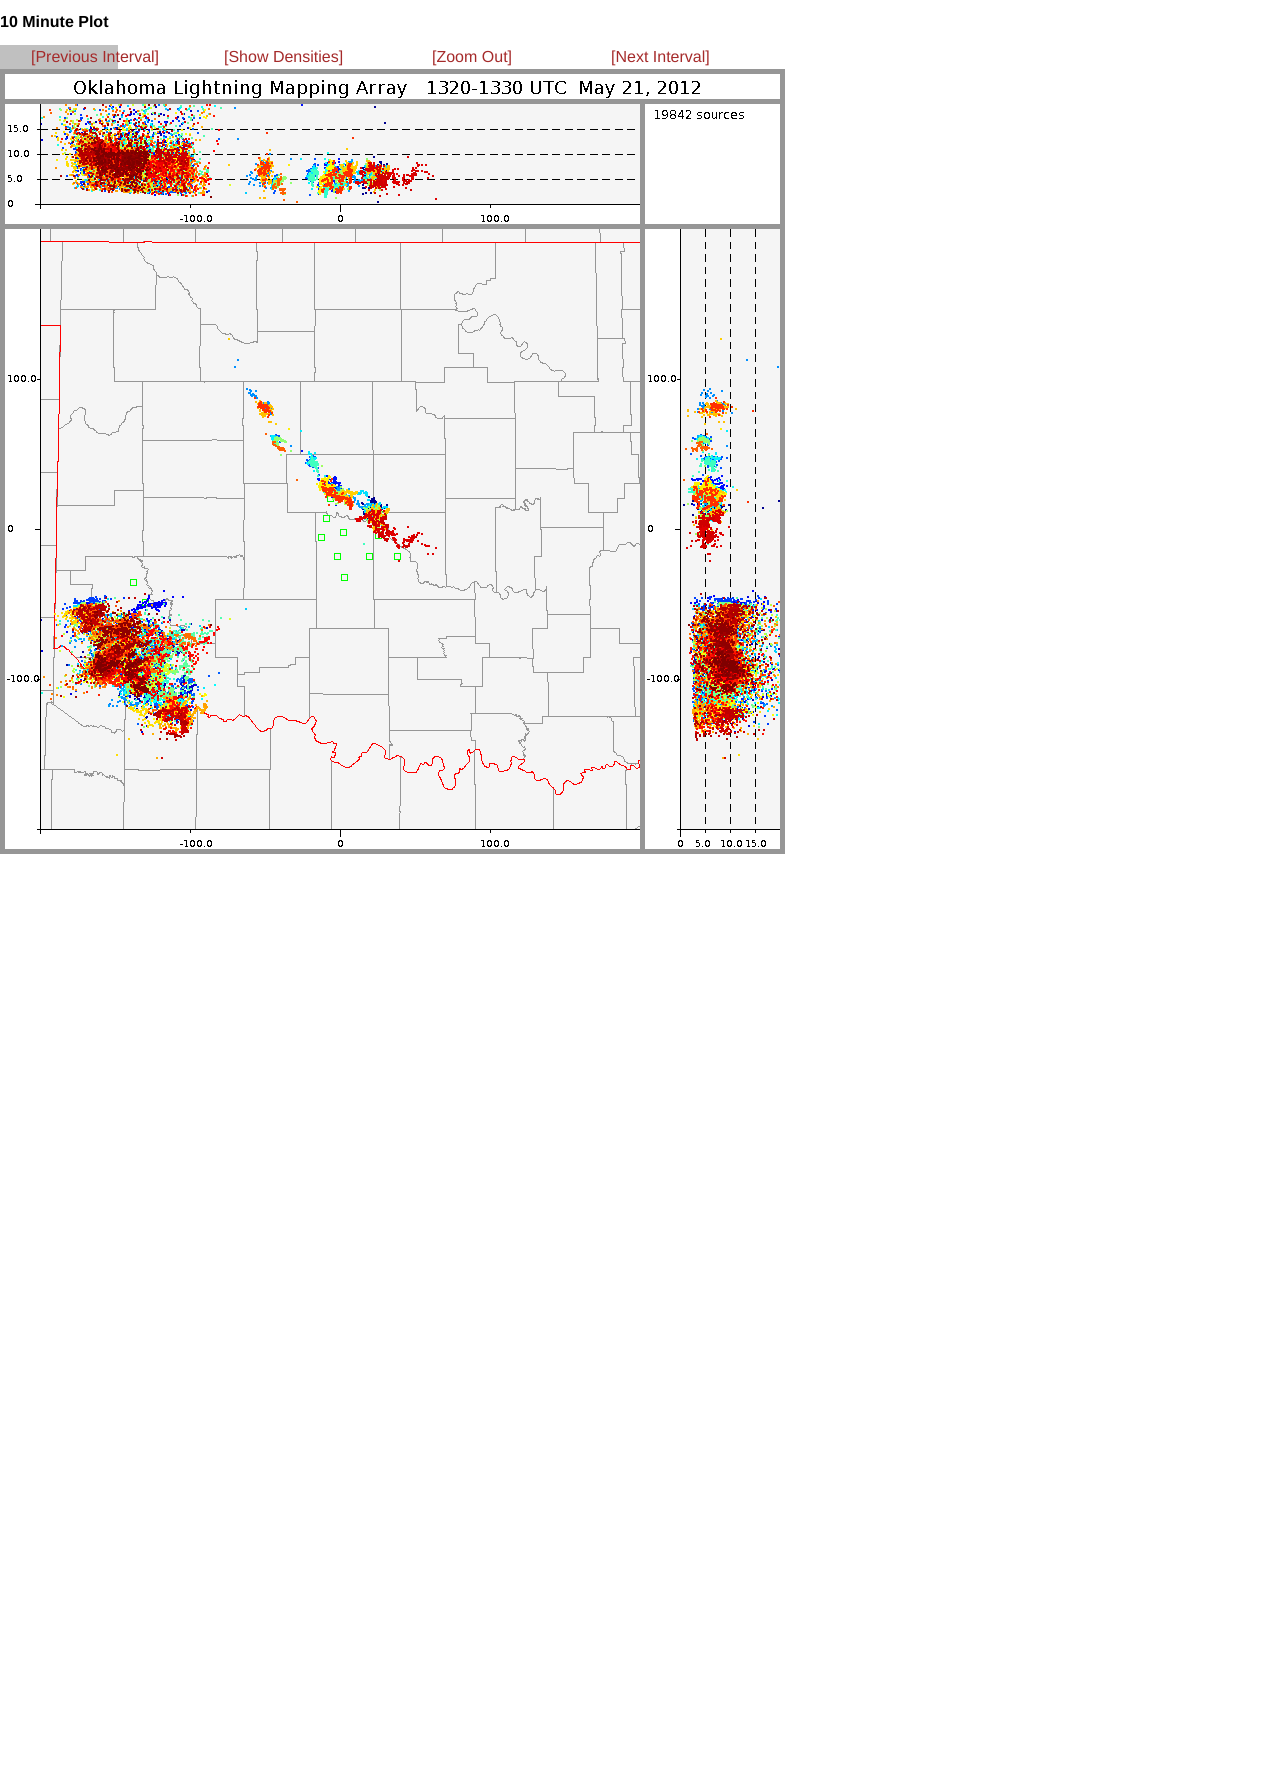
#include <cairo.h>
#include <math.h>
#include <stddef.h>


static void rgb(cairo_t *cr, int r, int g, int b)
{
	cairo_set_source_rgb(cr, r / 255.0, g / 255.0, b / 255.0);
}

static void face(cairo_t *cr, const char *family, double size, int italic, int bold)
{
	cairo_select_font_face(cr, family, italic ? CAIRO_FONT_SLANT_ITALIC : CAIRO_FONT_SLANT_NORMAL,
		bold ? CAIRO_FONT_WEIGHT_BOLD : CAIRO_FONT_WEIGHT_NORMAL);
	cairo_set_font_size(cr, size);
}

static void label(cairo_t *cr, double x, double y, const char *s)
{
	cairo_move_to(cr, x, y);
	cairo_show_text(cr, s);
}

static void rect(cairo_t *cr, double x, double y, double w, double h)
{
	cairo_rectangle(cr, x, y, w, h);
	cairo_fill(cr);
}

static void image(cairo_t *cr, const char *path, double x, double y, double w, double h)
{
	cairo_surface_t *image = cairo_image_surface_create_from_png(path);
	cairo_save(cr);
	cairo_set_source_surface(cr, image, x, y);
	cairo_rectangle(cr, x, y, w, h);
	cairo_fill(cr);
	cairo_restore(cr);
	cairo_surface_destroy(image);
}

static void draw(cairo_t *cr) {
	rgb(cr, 255, 255, 255);
	cairo_paint(cr);
	face(cr, "Liberation Sans", 16, 0, 1);
	rgb(cr, 0, 0, 0);
	label(cr, 0, 27, "10 Minute Plot");
	rgb(cr, 192, 192, 192);
	rect(cr, 0, 45, 118, 24);
	face(cr, "Liberation Sans", 16, 0, 0);
	rgb(cr, 165, 42, 42);
	label(cr, 31, 62, "[Previous Interval]");
	label(cr, 224, 62, "[Show Densities]");
	label(cr, 432, 62, "[Zoom Out]");
	label(cr, 611, 62, "[Next Interval]");
	image(cr, "image0.png", 0, 69, 785, 785);
}

int main(void) {
	cairo_surface_t *surface = cairo_image_surface_create(CAIRO_FORMAT_RGB24, 1285, 1773);
	cairo_t *cr = cairo_create(surface);
	cairo_font_options_t *options = cairo_font_options_create();
	cairo_font_options_set_hint_metrics(options, CAIRO_HINT_METRICS_OFF);
	cairo_font_options_set_hint_style(options, CAIRO_HINT_STYLE_NONE);
	cairo_set_font_options(cr, options);
	cairo_set_miter_limit(cr, 4);
	draw(cr);
	cairo_surface_write_to_png(surface, "render.png");
	cairo_font_options_destroy(options);
	cairo_destroy(cr);
	cairo_surface_destroy(surface);
	return 0;
}
